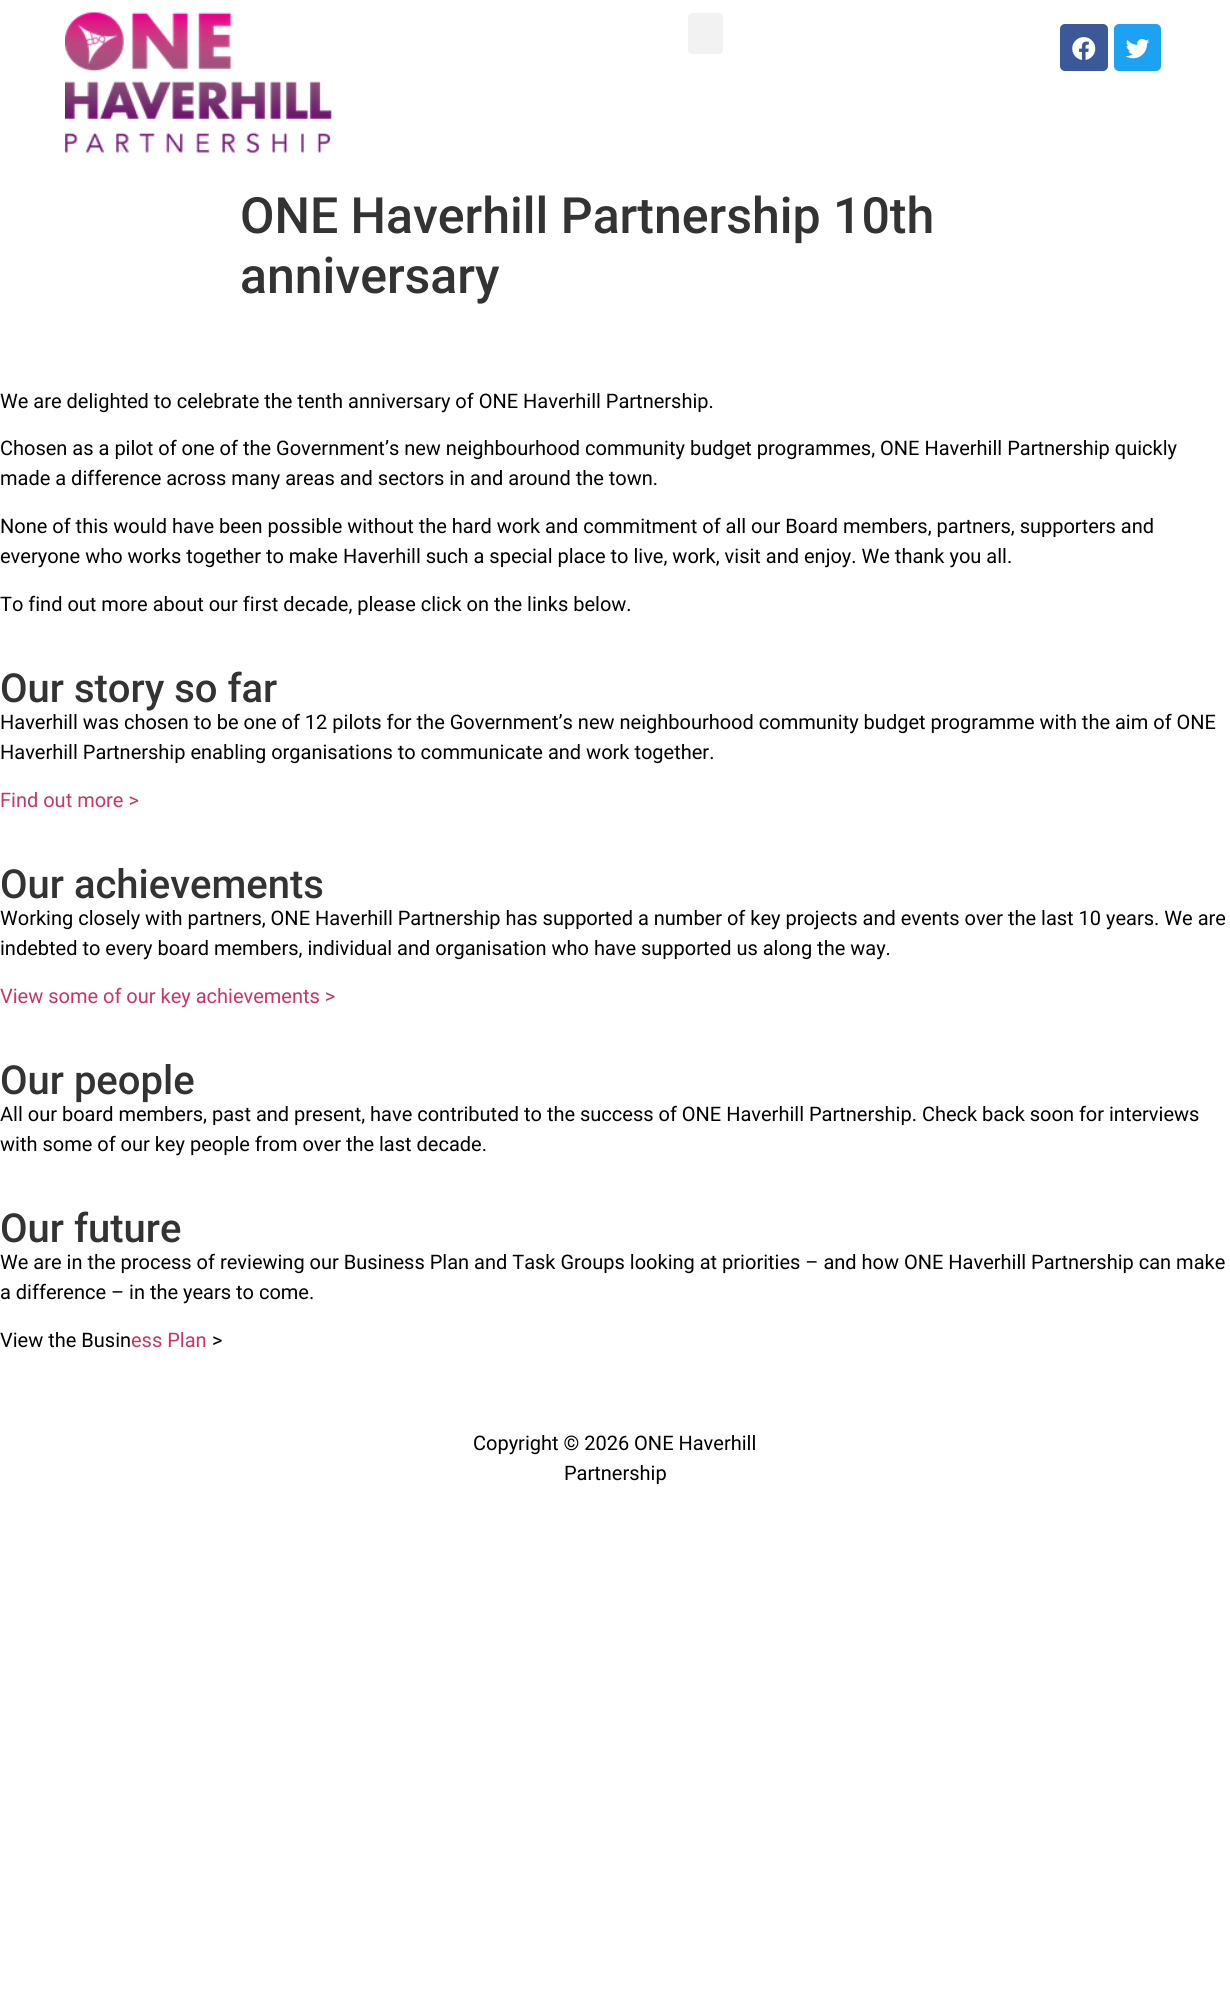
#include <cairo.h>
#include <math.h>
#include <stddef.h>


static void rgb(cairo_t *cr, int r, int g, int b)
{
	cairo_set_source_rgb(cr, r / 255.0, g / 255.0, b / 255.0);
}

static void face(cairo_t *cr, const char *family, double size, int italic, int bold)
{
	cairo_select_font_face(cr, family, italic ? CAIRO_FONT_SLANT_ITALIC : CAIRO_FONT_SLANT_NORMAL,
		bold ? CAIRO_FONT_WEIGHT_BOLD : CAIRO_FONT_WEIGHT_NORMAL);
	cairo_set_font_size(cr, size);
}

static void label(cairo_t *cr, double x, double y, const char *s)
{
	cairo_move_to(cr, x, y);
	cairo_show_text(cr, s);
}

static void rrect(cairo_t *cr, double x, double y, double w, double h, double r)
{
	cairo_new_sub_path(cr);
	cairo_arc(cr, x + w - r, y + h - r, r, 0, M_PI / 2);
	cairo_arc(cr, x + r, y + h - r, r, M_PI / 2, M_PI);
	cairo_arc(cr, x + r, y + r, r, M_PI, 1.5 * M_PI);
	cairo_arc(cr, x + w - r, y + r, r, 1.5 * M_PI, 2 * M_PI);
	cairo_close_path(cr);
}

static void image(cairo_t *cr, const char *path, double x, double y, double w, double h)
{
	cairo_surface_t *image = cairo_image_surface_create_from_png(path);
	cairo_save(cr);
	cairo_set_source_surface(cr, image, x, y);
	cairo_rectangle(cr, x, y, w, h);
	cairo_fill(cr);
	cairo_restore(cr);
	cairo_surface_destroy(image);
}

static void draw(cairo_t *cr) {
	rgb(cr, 255, 255, 255);
	cairo_paint(cr);
	image(cr, "image0.png", 65, 12, 267, 142);
	rgb(cr, 242, 242, 242);
	rrect(cr, 688, 13, 35, 41, 4);
	cairo_fill(cr);
	rgb(cr, 59, 89, 152);
	rrect(cr, 1060, 24, 48, 47, 5);
	cairo_fill(cr);
	image(cr, "image1.png", 1072, 37, 24, 23);
	rgb(cr, 29, 161, 242);
	rrect(cr, 1114, 24, 47, 47, 5);
	cairo_fill(cr);
	image(cr, "image2.png", 1125, 39, 25, 20);
	face(cr, "Roboto Medium", 50, 0, 0);
	rgb(cr, 51, 51, 51);
	label(cr, 240, 233, "ONE Haverhill Partnership 10th");
	label(cr, 240, 293, "anniversary");
	face(cr, "Roboto", 20, 0, 0);
	rgb(cr, 0, 0, 0);
	label(cr, 0, 408, "We are delighted to celebrate the tenth anniversary of ONE Haverhill Partnership.");
	label(cr, 0, 455, "Chosen as a pilot of one of the Government’s new neighbourhood community budget programmes, ONE Haverhill Partnership quickly");
	label(cr, 0, 485, "made a difference across many areas and sectors in and around the town.");
	label(cr, 0, 533, "None of this would have been possible without the hard work and commitment of all our Board members, partners, supporters and");
	label(cr, 0, 563, "everyone who works together to make Haverhill such a special place to live, work, visit and enjoy. We thank you all.");
	label(cr, 0, 611, "To find out more about our first decade, please click on the links below.");
	face(cr, "Roboto Medium", 40, 0, 0);
	rgb(cr, 51, 51, 51);
	label(cr, 0, 702, "Our story so far");
	face(cr, "Roboto", 20, 0, 0);
	rgb(cr, 0, 0, 0);
	label(cr, 0, 729, "Haverhill was chosen to be one of 12 pilots for the Government’s new neighbourhood community budget programme with the aim of ONE");
	label(cr, 0, 759, "Haverhill Partnership enabling organisations to communicate and work together.");
	rgb(cr, 204, 51, 102);
	label(cr, 0, 807, "Find out more >");
	face(cr, "Roboto Medium", 40, 0, 0);
	rgb(cr, 51, 51, 51);
	label(cr, 0, 898, "Our achievements");
	face(cr, "Roboto", 20, 0, 0);
	rgb(cr, 0, 0, 0);
	label(cr, 0, 925, "Working closely with partners, ONE Haverhill Partnership has supported a number of key projects and events over the last 10 years. We are");
	label(cr, 0, 955, "indebted to every board members, individual and organisation who have supported us along the way.");
	rgb(cr, 204, 51, 102);
	label(cr, 0, 1003, "View some of our key achievements >");
	face(cr, "Roboto Medium", 40, 0, 0);
	rgb(cr, 51, 51, 51);
	label(cr, 0, 1094, "Our people");
	face(cr, "Roboto", 20, 0, 0);
	rgb(cr, 0, 0, 0);
	label(cr, 0, 1121, "All our board members, past and present, have contributed to the success of ONE Haverhill Partnership. Check back soon for interviews");
	label(cr, 0, 1151, "with some of our key people from over the last decade.");
	face(cr, "Roboto Medium", 40, 0, 0);
	rgb(cr, 51, 51, 51);
	label(cr, 0, 1242, "Our future");
	face(cr, "Roboto", 20, 0, 0);
	rgb(cr, 0, 0, 0);
	label(cr, 0, 1269, "We are in the process of reviewing our Business Plan and Task Groups looking at priorities – and how ONE Haverhill Partnership can make");
	label(cr, 0, 1299, "a difference – in the years to come.");
	label(cr, 0, 1347, "View the Busin");
	rgb(cr, 204, 51, 102);
	label(cr, 131, 1347, "ess Plan");
	rgb(cr, 0, 0, 0);
	label(cr, 212, 1347, ">");
	label(cr, 473, 1450, "Copyright © 2026 ONE Haverhill");
	label(cr, 564, 1480, "Partnership");
}

int main(void) {
	cairo_surface_t *surface = cairo_image_surface_create(CAIRO_FORMAT_RGB24, 1230, 2011);
	cairo_t *cr = cairo_create(surface);
	cairo_font_options_t *options = cairo_font_options_create();
	cairo_font_options_set_hint_metrics(options, CAIRO_HINT_METRICS_OFF);
	cairo_font_options_set_hint_style(options, CAIRO_HINT_STYLE_NONE);
	cairo_set_font_options(cr, options);
	cairo_set_miter_limit(cr, 4);
	draw(cr);
	cairo_surface_write_to_png(surface, "render.png");
	cairo_font_options_destroy(options);
	cairo_destroy(cr);
	cairo_surface_destroy(surface);
	return 0;
}
